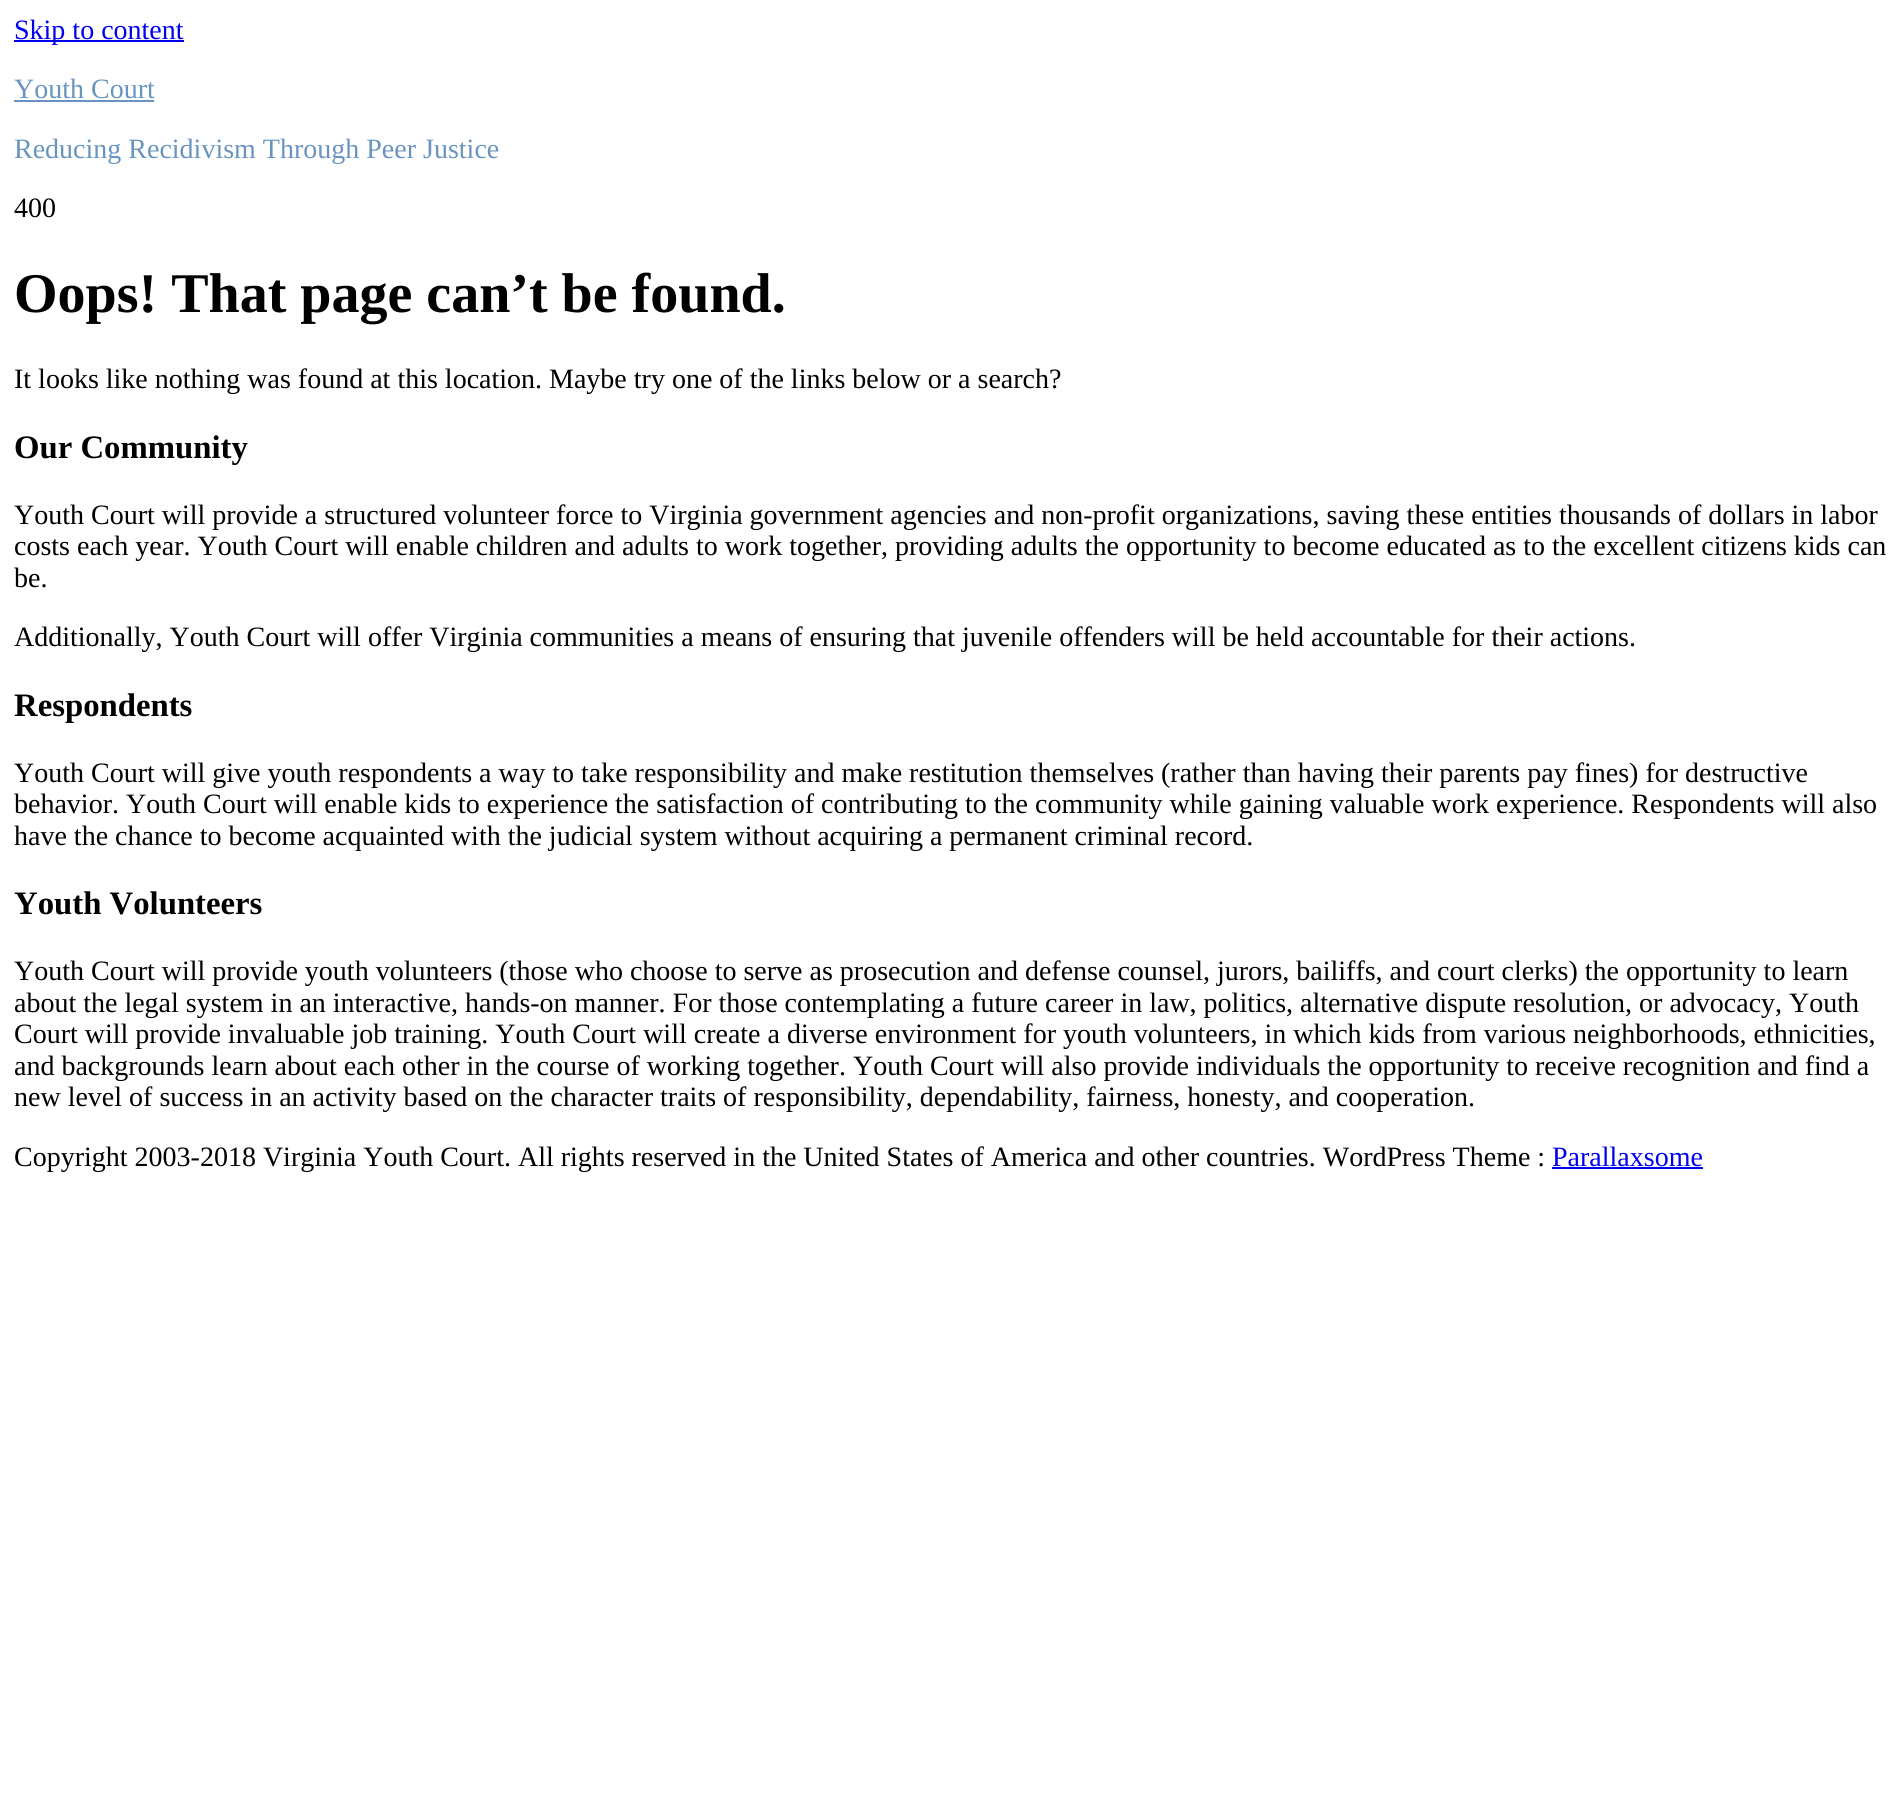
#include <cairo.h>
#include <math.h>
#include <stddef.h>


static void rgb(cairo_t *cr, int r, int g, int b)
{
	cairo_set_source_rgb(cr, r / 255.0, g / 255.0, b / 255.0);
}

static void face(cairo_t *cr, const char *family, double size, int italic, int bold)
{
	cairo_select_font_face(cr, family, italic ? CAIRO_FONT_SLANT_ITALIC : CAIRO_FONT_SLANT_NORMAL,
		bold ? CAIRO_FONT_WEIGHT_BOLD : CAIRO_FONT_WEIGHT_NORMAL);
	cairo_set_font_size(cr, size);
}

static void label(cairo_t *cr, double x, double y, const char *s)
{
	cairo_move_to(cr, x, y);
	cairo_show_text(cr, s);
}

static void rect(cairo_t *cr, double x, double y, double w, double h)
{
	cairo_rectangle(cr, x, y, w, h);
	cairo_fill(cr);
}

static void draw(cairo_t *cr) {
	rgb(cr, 255, 255, 255);
	cairo_paint(cr);
	rgb(cr, 0, 0, 238);
	rect(cr, 14, 40, 170, 2);
	face(cr, "Liberation Serif", 28, 0, 0);
	label(cr, 14, 39, "Skip to content");
	rgb(cr, 105, 148, 191);
	label(cr, 14, 98, "Youth Court");
	rect(cr, 14, 100, 140, 2);
	label(cr, 14, 158, "Reducing Recidivism Through Peer Justice");
	rgb(cr, 0, 0, 0);
	label(cr, 14, 217, "400");
	face(cr, "Liberation Serif", 56, 0, 1);
	label(cr, 14, 312, "Oops! That page can’t be found.");
	face(cr, "Liberation Serif", 28, 0, 0);
	label(cr, 14, 388, "It looks like nothing was found at this location. Maybe try one of the links below or a search?");
	face(cr, "Liberation Serif", 32.75, 0, 1);
	label(cr, 14, 458, "Our Community");
	face(cr, "Liberation Serif", 28, 0, 0);
	label(cr, 14, 524, "Youth Court will provide a structured volunteer force to Virginia government agencies and non-profit organizations, saving these entities thousands of dollars in labor");
	label(cr, 14, 555, "costs each year. Youth Court will enable children and adults to work together, providing adults the opportunity to become educated as to the excellent citizens kids can");
	label(cr, 14, 587, "be.");
	label(cr, 14, 646, "Additionally, Youth Court will offer Virginia communities a means of ensuring that juvenile offenders will be held accountable for their actions.");
	face(cr, "Liberation Serif", 32.75, 0, 1);
	label(cr, 14, 716, "Respondents");
	face(cr, "Liberation Serif", 28, 0, 0);
	label(cr, 14, 782, "Youth Court will give youth respondents a way to take responsibility and make restitution themselves (rather than having their parents pay fines) for destructive");
	label(cr, 14, 813, "behavior. Youth Court will enable kids to experience the satisfaction of contributing to the community while gaining valuable work experience. Respondents will also");
	label(cr, 14, 845, "have the chance to become acquainted with the judicial system without acquiring a permanent criminal record.");
	face(cr, "Liberation Serif", 32.75, 0, 1);
	label(cr, 14, 914, "Youth Volunteers");
	face(cr, "Liberation Serif", 28, 0, 0);
	label(cr, 14, 980, "Youth Court will provide youth volunteers (those who choose to serve as prosecution and defense counsel, jurors, bailiffs, and court clerks) the opportunity to learn");
	label(cr, 14, 1012, "about the legal system in an interactive, hands-on manner. For those contemplating a future career in law, politics, alternative dispute resolution, or advocacy, Youth");
	label(cr, 14, 1043, "Court will provide invaluable job training. Youth Court will create a diverse environment for youth volunteers, in which kids from various neighborhoods, ethnicities,");
	label(cr, 14, 1075, "and backgrounds learn about each other in the course of working together. Youth Court will also provide individuals the opportunity to receive recognition and find a");
	label(cr, 14, 1106, "new level of success in an activity based on the character traits of responsibility, dependability, fairness, honesty, and cooperation.");
	label(cr, 14, 1166, "Copyright 2003-2018 Virginia Youth Court. All rights reserved in the United States of America and other countries. WordPress Theme :");
	rgb(cr, 0, 0, 238);
	label(cr, 1552, 1166, "Parallaxsome");
	rect(cr, 1552, 1167, 151, 2);
}

int main(void) {
	cairo_surface_t *surface = cairo_image_surface_create(CAIRO_FORMAT_RGB24, 1902, 1816);
	cairo_t *cr = cairo_create(surface);
	cairo_font_options_t *options = cairo_font_options_create();
	cairo_font_options_set_hint_metrics(options, CAIRO_HINT_METRICS_OFF);
	cairo_font_options_set_hint_style(options, CAIRO_HINT_STYLE_NONE);
	cairo_set_font_options(cr, options);
	cairo_set_miter_limit(cr, 4);
	draw(cr);
	cairo_surface_write_to_png(surface, "render.png");
	cairo_font_options_destroy(options);
	cairo_destroy(cr);
	cairo_surface_destroy(surface);
	return 0;
}
